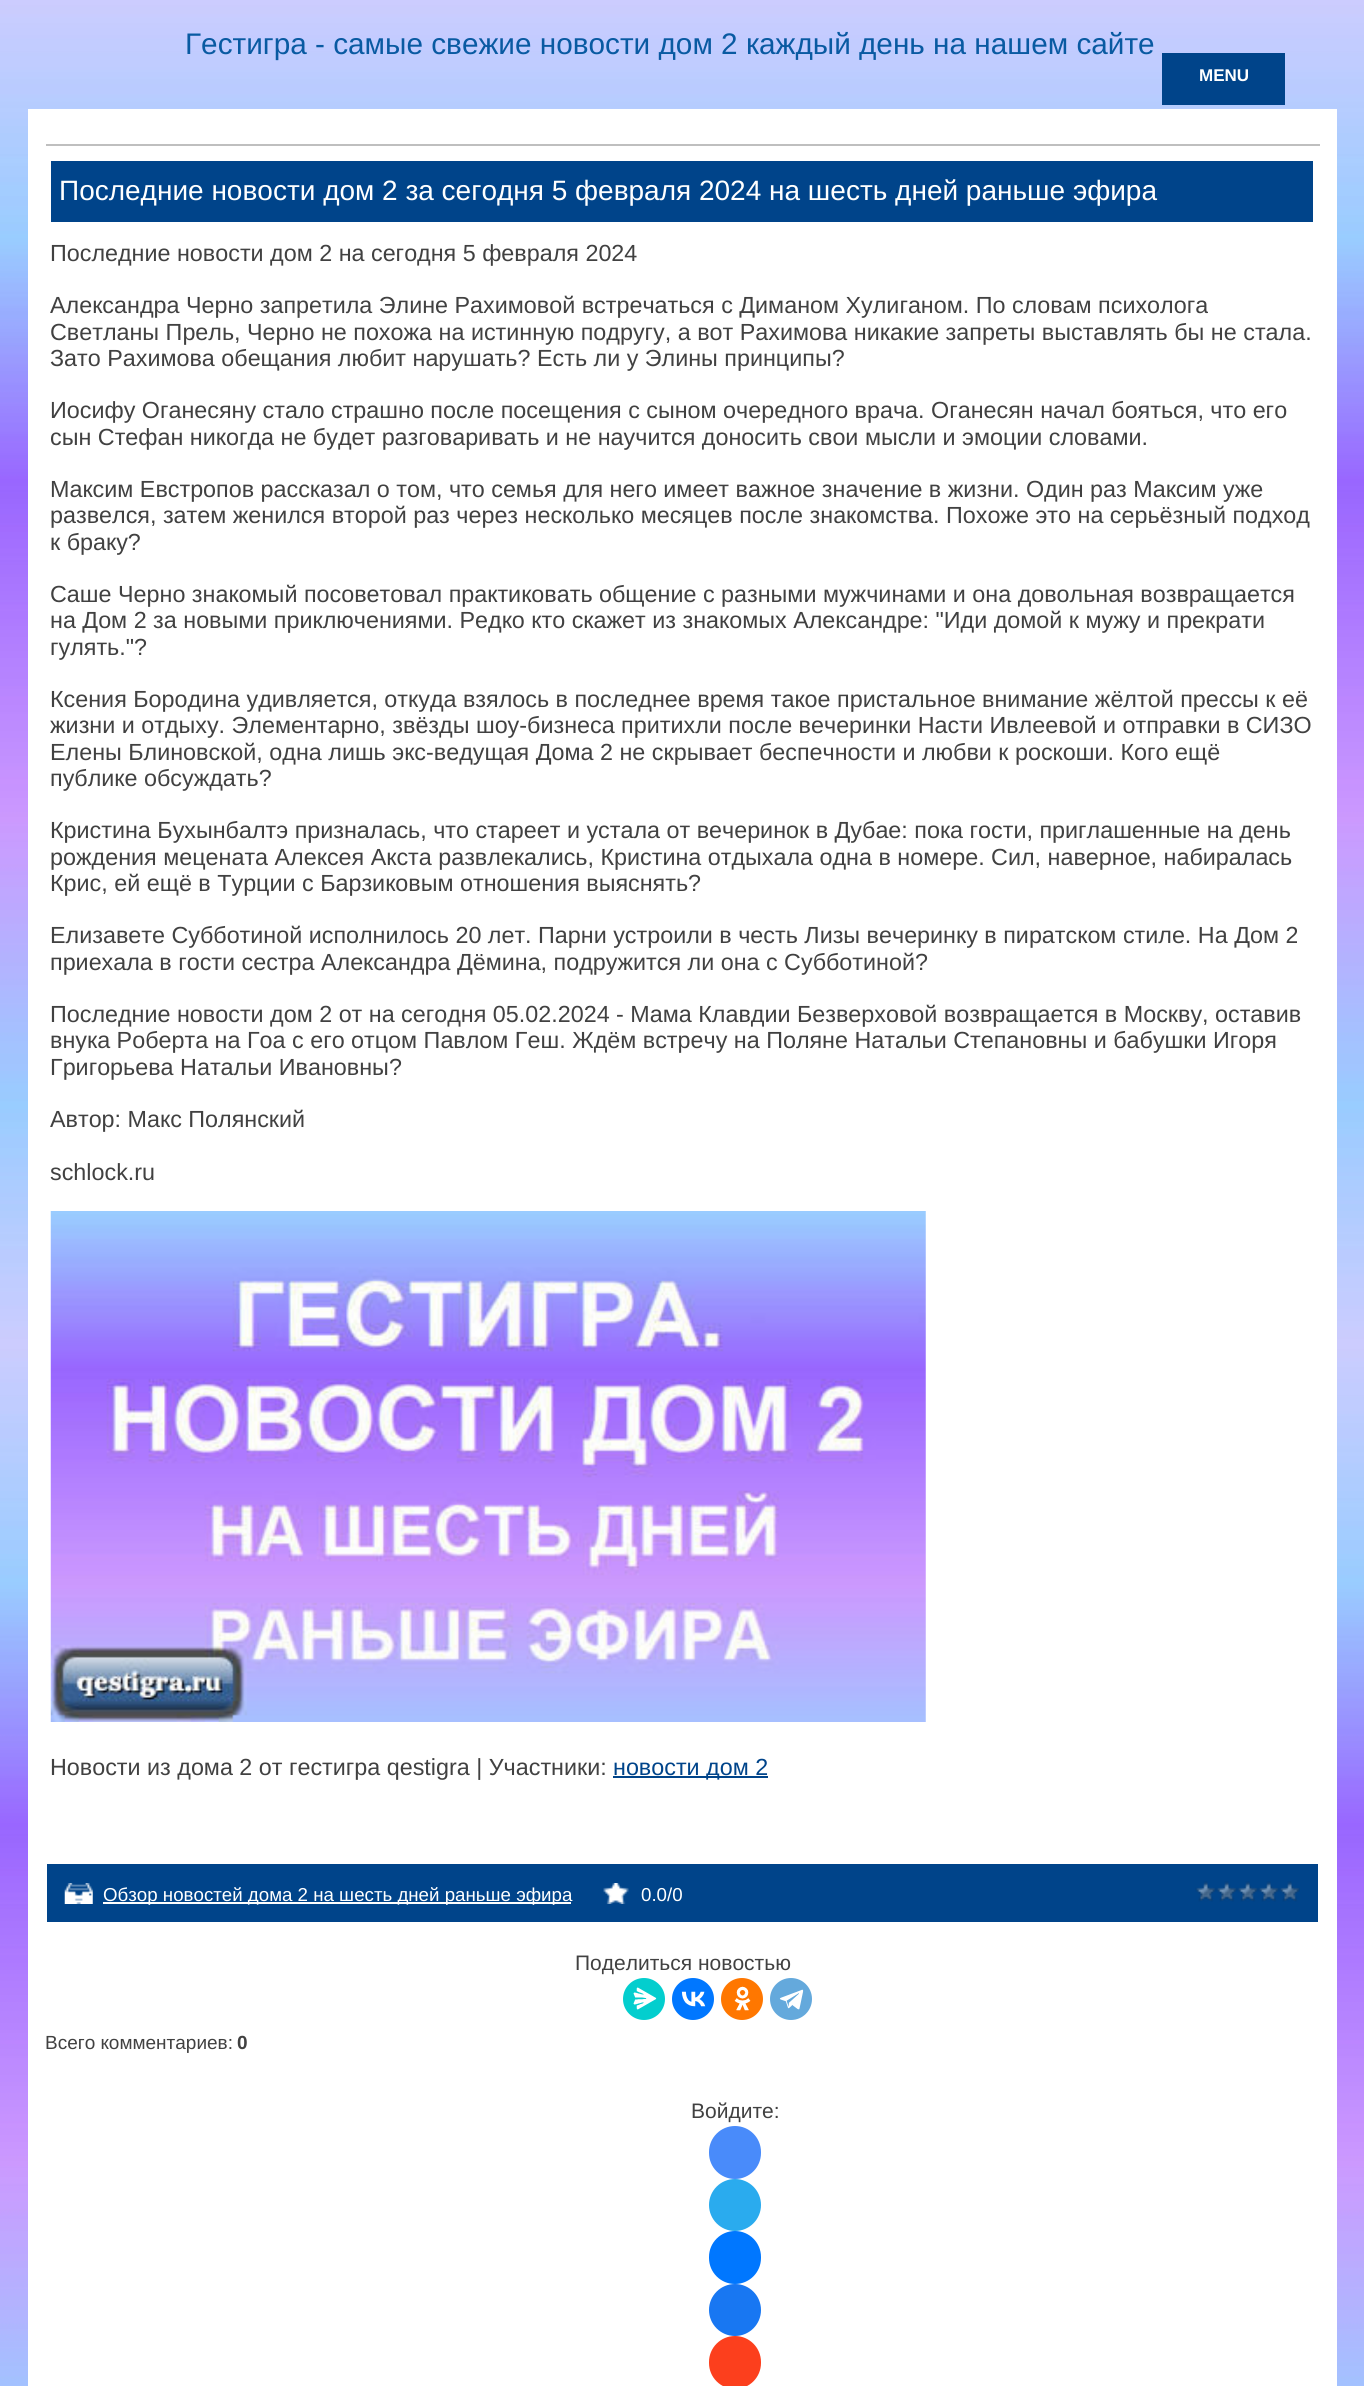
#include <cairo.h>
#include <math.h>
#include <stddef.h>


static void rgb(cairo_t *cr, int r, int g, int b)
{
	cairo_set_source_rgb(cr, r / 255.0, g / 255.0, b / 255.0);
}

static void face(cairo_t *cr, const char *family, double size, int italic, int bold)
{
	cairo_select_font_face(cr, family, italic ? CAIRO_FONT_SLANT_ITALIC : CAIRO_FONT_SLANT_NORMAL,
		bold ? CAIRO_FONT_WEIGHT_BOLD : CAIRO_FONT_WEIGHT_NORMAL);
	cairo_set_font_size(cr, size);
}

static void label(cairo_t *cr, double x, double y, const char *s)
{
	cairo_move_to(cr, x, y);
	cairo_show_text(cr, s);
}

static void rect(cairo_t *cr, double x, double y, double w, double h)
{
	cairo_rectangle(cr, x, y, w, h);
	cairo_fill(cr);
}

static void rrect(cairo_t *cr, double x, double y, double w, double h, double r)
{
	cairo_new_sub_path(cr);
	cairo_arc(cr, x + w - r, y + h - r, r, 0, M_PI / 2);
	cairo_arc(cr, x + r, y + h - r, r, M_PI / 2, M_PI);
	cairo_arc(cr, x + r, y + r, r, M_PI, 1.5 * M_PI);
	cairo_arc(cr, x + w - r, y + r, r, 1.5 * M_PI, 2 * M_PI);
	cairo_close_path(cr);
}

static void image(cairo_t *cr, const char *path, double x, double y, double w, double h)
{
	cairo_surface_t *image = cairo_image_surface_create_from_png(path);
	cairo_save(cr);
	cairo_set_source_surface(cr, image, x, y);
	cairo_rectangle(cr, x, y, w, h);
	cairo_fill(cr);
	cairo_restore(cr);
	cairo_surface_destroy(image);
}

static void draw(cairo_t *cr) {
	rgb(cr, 255, 255, 255);
	cairo_paint(cr);
	image(cr, "image0.png", 0, 0, 1364, 2386);
	face(cr, "Liberation Sans", 29.75, 0, 0);
	rgb(cr, 9, 90, 162);
	label(cr, 185, 54, "Гестигра - самые свежие новости дом 2 каждый день на нашем сайте");
	rgb(cr, 0, 68, 138);
	rect(cr, 1162, 53, 123, 52);
	face(cr, "Liberation Sans", 17, 0, 1);
	rgb(cr, 255, 255, 255);
	label(cr, 1199, 81, "MENU");
	rect(cr, 28, 109, 1309, 2277);
	rgb(cr, 191, 191, 191);
	rect(cr, 46, 144, 1274, 2);
	rgb(cr, 0, 68, 138);
	rect(cr, 51, 161, 1262, 61);
	face(cr, "Liberation Sans", 28, 0, 0);
	rgb(cr, 255, 255, 255);
	label(cr, 59, 200, "Последние новости дом 2 за сегодня 5 февраля 2024 на шесть дней раньше эфира");
	face(cr, "Liberation Sans", 23.33, 0, 0);
	rgb(cr, 65, 65, 65);
	label(cr, 50, 261, "Последние новости дом 2 на сегодня 5 февраля 2024");
	label(cr, 50, 313, "Александра Черно запретила Элине Рахимовой встречаться с Диманом Хулиганом. По словам психолога");
	label(cr, 50, 340, "Светланы Прель, Черно не похожа на истинную подругу, а вот Рахимова никакие запреты выставлять бы не стала.");
	label(cr, 50, 366, "Зато Рахимова обещания любит нарушать? Есть ли у Элины принципы?");
	label(cr, 50, 418, "Иосифу Оганесяну стало страшно после посещения с сыном очередного врача. Оганесян начал бояться, что его");
	label(cr, 50, 445, "сын Стефан никогда не будет разговаривать и не научится доносить свои мысли и эмоции словами.");
	label(cr, 50, 497, "Максим Евстропов рассказал о том, что семья для него имеет важное значение в жизни. Один раз Максим уже");
	label(cr, 50, 523, "развелся, затем женился второй раз через несколько месяцев после знакомства. Похоже это на серьёзный подход");
	label(cr, 50, 550, "к браку?");
	label(cr, 50, 602, "Саше Черно знакомый посоветовал практиковать общение с разными мужчинами и она довольная возвращается");
	label(cr, 50, 628, "на Дом 2 за новыми приключениями. Редко кто скажет из знакомых Александре: \"Иди домой к мужу и прекрати");
	label(cr, 50, 655, "гулять.\"?");
	label(cr, 50, 707, "Ксения Бородина удивляется, откуда взялось в последнее время такое пристальное внимание жёлтой прессы к её");
	label(cr, 50, 733, "жизни и отдыху. Элементарно, звёзды шоу-бизнеса притихли после вечеринки Насти Ивлеевой и отправки в СИЗО");
	label(cr, 50, 760, "Елены Блиновской, одна лишь экс-ведущая Дома 2 не скрывает беспечности и любви к роскоши. Кого ещё");
	label(cr, 50, 786, "публике обсуждать?");
	label(cr, 50, 838, "Кристина Бухынбалтэ призналась, что стареет и устала от вечеринок в Дубае: пока гости, приглашенные на день");
	label(cr, 50, 865, "рождения мецената Алексея Акста развлекались, Кристина отдыхала одна в номере. Сил, наверное, набиралась");
	label(cr, 50, 891, "Крис, ей ещё в Турции с Барзиковым отношения выяснять?");
	label(cr, 50, 943, "Елизавете Субботиной исполнилось 20 лет. Парни устроили в честь Лизы вечеринку в пиратском стиле. На Дом 2");
	label(cr, 50, 970, "приехала в гости сестра Александра Дёмина, подружится ли она с Субботиной?");
	label(cr, 50, 1022, "Последние новости дом 2 от на сегодня 05.02.2024 - Мама Клавдии Безверховой возвращается в Москву, оставив");
	label(cr, 50, 1048, "внука Роберта на Гоа с его отцом Павлом Геш. Ждём встречу на Поляне Натальи Степановны и бабушки Игоря");
	label(cr, 50, 1075, "Григорьева Натальи Ивановны?");
	label(cr, 50, 1127, "Автор: Макс Полянский");
	label(cr, 50, 1180, "schlock.ru");
	image(cr, "image1.png", 50, 1211, 876, 511);
	label(cr, 50, 1775, "Новости из дома 2 от гестигра qestigra | Участники:");
	rgb(cr, 0, 68, 138);
	rect(cr, 613, 1776, 155, 2);
	label(cr, 613, 1775, "новости дом 2");
	rect(cr, 47, 1864, 1271, 58);
	image(cr, "image2.png", 64, 1883, 29, 21);
	rgb(cr, 255, 255, 255);
	rect(cr, 103, 1902, 468, 2);
	face(cr, "Liberation Sans", 18.7, 0, 0);
	label(cr, 103, 1901, "Обзор новостей дома 2 на шесть дней раньше эфира");
	image(cr, "image3.png", 603, 1883, 26, 21);
	label(cr, 641, 1901, "0.0/0");
	image(cr, "image4.png", 1195, 1881, 105, 21);
	face(cr, "Liberation Sans", 21, 0, 0);
	rgb(cr, 65, 65, 65);
	label(cr, 575, 1970, "Поделиться новостью");
	rgb(cr, 3, 206, 206);
	cairo_new_path(cr);
	cairo_arc(cr, 644, 1999, 21, 0, 2 * M_PI);
	cairo_fill(cr);
	image(cr, "image5.png", 633, 1987, 24, 23);
	rgb(cr, 0, 119, 255);
	cairo_arc(cr, 693, 1999, 21, 0, 2 * M_PI);
	cairo_fill(cr);
	image(cr, "image6.png", 681, 1991, 25, 16);
	rgb(cr, 255, 119, 0);
	cairo_arc(cr, 742, 1999, 21, 0, 2 * M_PI);
	cairo_fill(cr);
	image(cr, "image7.png", 734, 1986, 17, 25);
	rgb(cr, 100, 169, 220);
	cairo_arc(cr, 791, 1999, 21, 0, 2 * M_PI);
	cairo_fill(cr);
	image(cr, "image8.png", 779, 1989, 25, 21);
	face(cr, "Liberation Sans", 19, 0, 0);
	rgb(cr, 65, 65, 65);
	label(cr, 45, 2049, "Всего комментариев:");
	face(cr, "Liberation Sans", 19, 0, 1);
	label(cr, 237, 2049, "0");
	face(cr, "Liberation Sans", 21, 0, 0);
	label(cr, 691, 2118, "Войдите:");
	rgb(cr, 73, 139, 250);
	rrect(cr, 709, 2126, 52, 53, 26);
	cairo_fill(cr);
	rgb(cr, 42, 171, 238);
	cairo_arc(cr, 735, 2205, 26, 0, 2 * M_PI);
	cairo_fill(cr);
	rgb(cr, 0, 119, 255);
	rrect(cr, 709, 2231, 52, 53, 26);
	cairo_fill(cr);
	rgb(cr, 24, 119, 242);
	cairo_arc(cr, 735, 2310, 26, 0, 2 * M_PI);
	cairo_fill(cr);
	rgb(cr, 252, 63, 29);
	rrect(cr, 709, 2336, 52, 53, 26);
	cairo_fill(cr);
}

int main(void) {
	cairo_surface_t *surface = cairo_image_surface_create(CAIRO_FORMAT_RGB24, 1364, 2386);
	cairo_t *cr = cairo_create(surface);
	cairo_font_options_t *options = cairo_font_options_create();
	cairo_font_options_set_hint_metrics(options, CAIRO_HINT_METRICS_OFF);
	cairo_font_options_set_hint_style(options, CAIRO_HINT_STYLE_NONE);
	cairo_set_font_options(cr, options);
	cairo_set_miter_limit(cr, 4);
	draw(cr);
	cairo_surface_write_to_png(surface, "render.png");
	cairo_font_options_destroy(options);
	cairo_destroy(cr);
	cairo_surface_destroy(surface);
	return 0;
}
